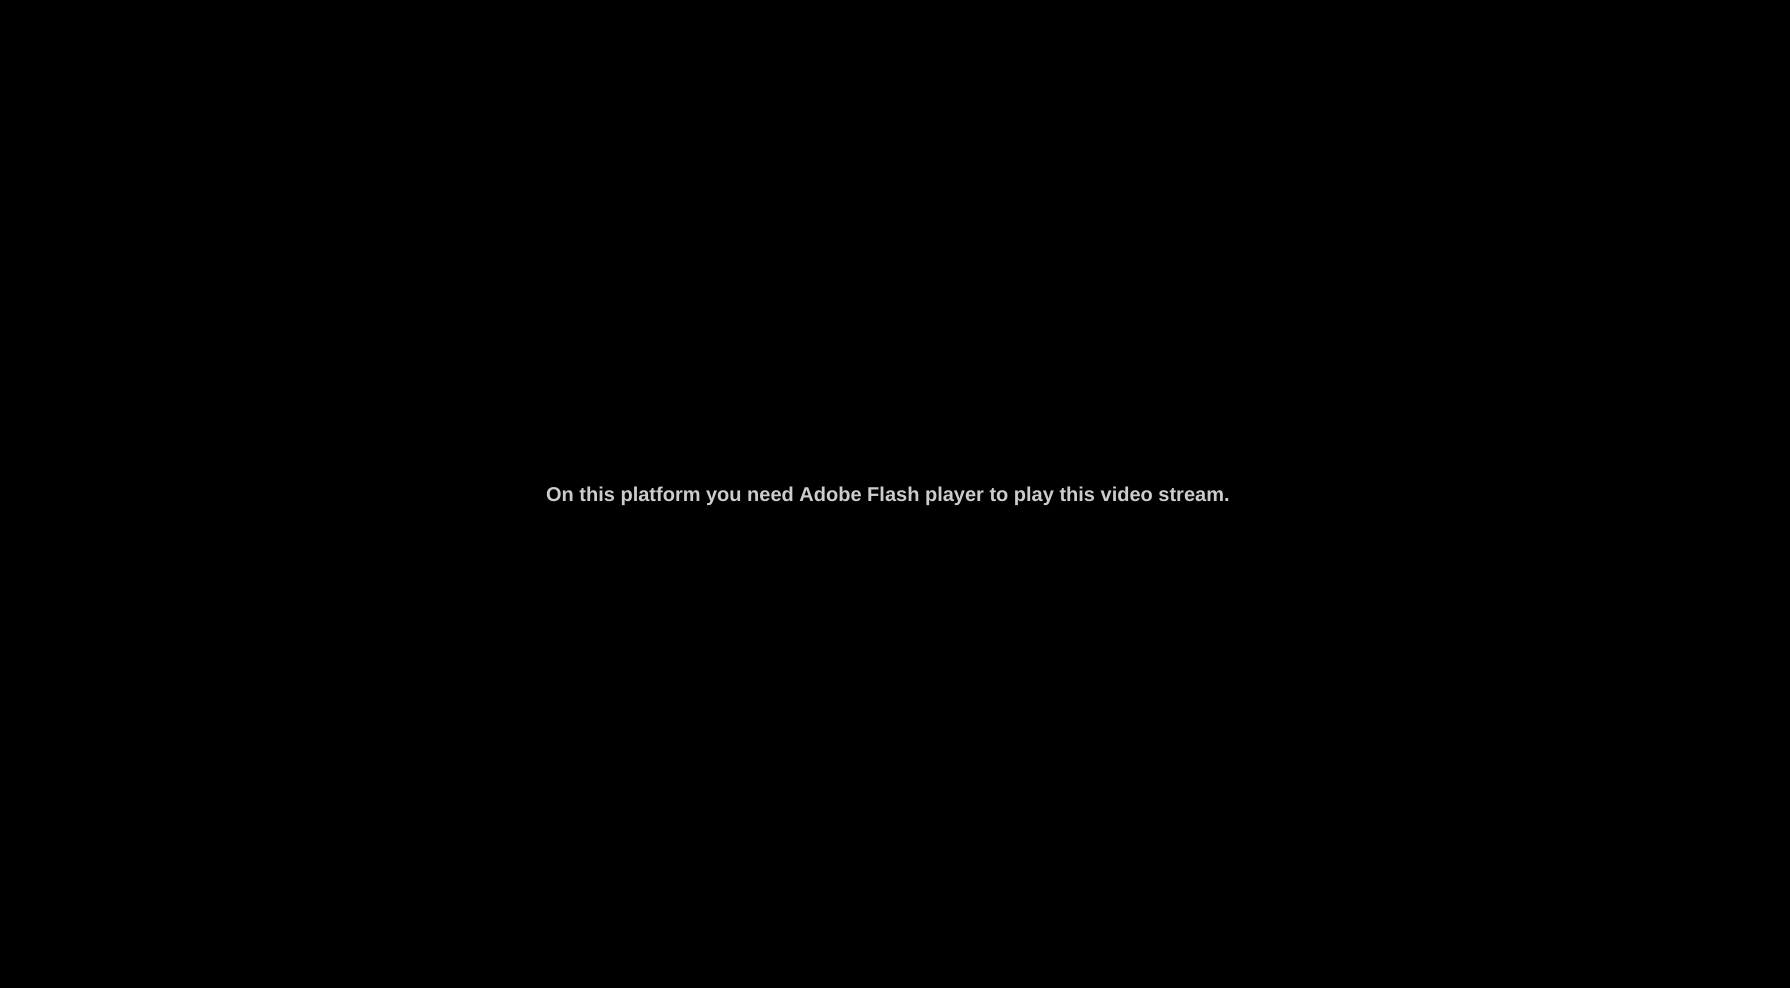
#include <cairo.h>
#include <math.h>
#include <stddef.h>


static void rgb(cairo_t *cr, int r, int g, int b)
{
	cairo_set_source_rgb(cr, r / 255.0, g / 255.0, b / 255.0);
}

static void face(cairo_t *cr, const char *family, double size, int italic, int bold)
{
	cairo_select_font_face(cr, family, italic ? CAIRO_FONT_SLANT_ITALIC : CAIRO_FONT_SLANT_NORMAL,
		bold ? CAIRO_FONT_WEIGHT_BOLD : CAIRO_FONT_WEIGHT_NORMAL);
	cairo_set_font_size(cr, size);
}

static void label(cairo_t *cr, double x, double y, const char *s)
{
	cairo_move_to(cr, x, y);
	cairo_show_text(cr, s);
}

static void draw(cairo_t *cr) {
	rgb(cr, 0, 0, 0);
	cairo_paint(cr);
	face(cr, "Liberation Sans", 20, 0, 1);
	rgb(cr, 204, 204, 204);
	label(cr, 546, 501, "On this platform you need Adobe Flash player to play this video stream.");
}

int main(void) {
	cairo_surface_t *surface = cairo_image_surface_create(CAIRO_FORMAT_RGB24, 1790, 988);
	cairo_t *cr = cairo_create(surface);
	cairo_font_options_t *options = cairo_font_options_create();
	cairo_font_options_set_hint_metrics(options, CAIRO_HINT_METRICS_OFF);
	cairo_font_options_set_hint_style(options, CAIRO_HINT_STYLE_NONE);
	cairo_set_font_options(cr, options);
	cairo_set_miter_limit(cr, 4);
	draw(cr);
	cairo_surface_write_to_png(surface, "render.png");
	cairo_font_options_destroy(options);
	cairo_destroy(cr);
	cairo_surface_destroy(surface);
	return 0;
}
